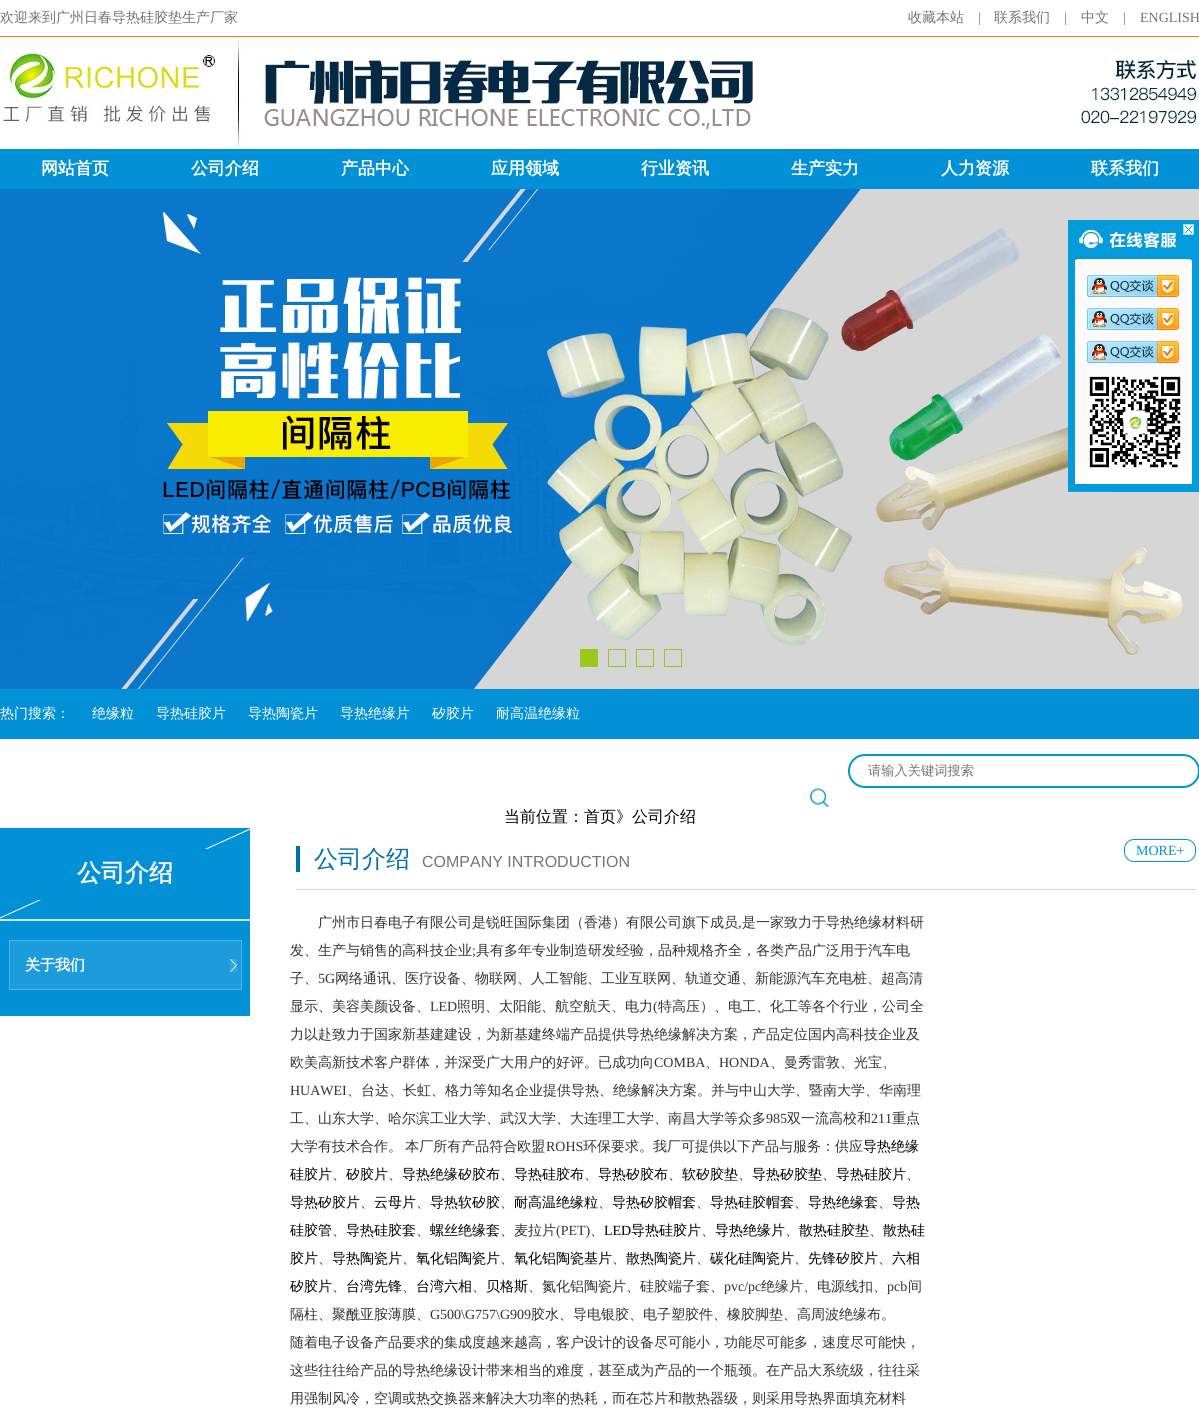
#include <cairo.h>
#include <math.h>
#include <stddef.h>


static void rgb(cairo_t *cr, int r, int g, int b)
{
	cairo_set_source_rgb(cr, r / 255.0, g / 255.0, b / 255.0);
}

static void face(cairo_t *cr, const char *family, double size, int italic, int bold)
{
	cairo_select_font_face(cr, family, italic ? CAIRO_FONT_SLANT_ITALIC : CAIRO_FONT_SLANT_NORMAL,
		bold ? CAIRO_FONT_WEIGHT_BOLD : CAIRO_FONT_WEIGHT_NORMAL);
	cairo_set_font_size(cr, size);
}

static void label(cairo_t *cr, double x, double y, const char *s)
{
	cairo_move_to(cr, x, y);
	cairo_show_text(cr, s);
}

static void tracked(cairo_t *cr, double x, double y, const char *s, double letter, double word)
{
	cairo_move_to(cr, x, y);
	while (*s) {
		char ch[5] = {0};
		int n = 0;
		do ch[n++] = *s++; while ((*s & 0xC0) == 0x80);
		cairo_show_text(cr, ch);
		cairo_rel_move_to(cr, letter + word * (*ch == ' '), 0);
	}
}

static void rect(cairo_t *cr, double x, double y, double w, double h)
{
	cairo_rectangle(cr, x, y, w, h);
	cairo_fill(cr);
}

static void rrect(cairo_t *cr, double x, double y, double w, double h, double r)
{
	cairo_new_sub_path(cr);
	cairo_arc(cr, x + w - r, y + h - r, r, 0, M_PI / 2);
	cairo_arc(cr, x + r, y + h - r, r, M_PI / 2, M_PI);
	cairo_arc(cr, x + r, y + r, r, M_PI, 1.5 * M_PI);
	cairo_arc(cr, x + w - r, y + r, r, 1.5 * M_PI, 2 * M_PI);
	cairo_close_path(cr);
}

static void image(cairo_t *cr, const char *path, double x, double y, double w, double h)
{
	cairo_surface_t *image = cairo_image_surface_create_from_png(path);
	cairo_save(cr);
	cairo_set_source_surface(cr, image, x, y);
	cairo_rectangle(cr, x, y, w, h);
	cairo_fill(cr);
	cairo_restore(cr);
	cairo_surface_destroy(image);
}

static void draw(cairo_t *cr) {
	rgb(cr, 255, 255, 255);
	cairo_paint(cr);
	face(cr, "WenQuanYi Zen Hei Medium", 14, 0, 0);
	rgb(cr, 116, 116, 116);
	label(cr, 0, 22, "欢迎来到广州日春导热硅胶垫生产厂家");
	label(cr, 908, 22, "收藏本站");
	face(cr, "Liberation Serif", 14, 0, 0);
	label(cr, 978, 22, "|");
	face(cr, "WenQuanYi Zen Hei Medium", 14, 0, 0);
	label(cr, 994, 22, "联系我们");
	face(cr, "Liberation Serif", 14, 0, 0);
	label(cr, 1064, 22, "|");
	face(cr, "WenQuanYi Zen Hei Medium", 14, 0, 0);
	label(cr, 1081, 22, "中文");
	face(cr, "Liberation Serif", 14, 0, 0);
	label(cr, 1123, 22, "|");
	label(cr, 1140, 22, "ENGLISH");
	rgb(cr, 250, 128, 20);
	rect(cr, 0, 36, 1199, 1);
	image(cr, "image0.png", 3, 37, 752, 112);
	image(cr, "image1.png", 1081, 59, 118, 65);
	rgb(cr, 2, 144, 215);
	rect(cr, 0, 149, 1199, 40);
	face(cr, "WenQuanYi Zen Hei", 17, 0, 1);
	rgb(cr, 255, 255, 255);
	label(cr, 41, 174, "网站首页");
	label(cr, 191, 174, "公司介绍");
	label(cr, 341, 174, "产品中心");
	label(cr, 491, 174, "应用领域");
	label(cr, 641, 174, "行业资讯");
	label(cr, 791, 174, "生产实力");
	label(cr, 941, 174, "人力资源");
	label(cr, 1091, 174, "联系我们");
	image(cr, "image2.png", 0, 189, 1199, 500);
	rgb(cr, 156, 199, 28);
	rect(cr, 580, 649, 18, 18);
	cairo_rectangle(cr, 608.5, 649.5, 17, 17);
	cairo_set_line_width(cr, 1);
	cairo_stroke(cr);
	cairo_rectangle(cr, 636.5, 649.5, 17, 17);
	cairo_stroke(cr);
	cairo_rectangle(cr, 664.5, 649.5, 17, 17);
	cairo_stroke(cr);
	image(cr, "image3.png", 1068, 220, 131, 40);
	image(cr, "image4.png", 1183, 224, 11, 11);
	rgb(cr, 251, 251, 251);
	rect(cr, 1075, 260, 117, 210);
	rgb(cr, 2, 155, 219);
	rect(cr, 1192, 260, 7, 210);
	rect(cr, 1068, 260, 7, 210);
	image(cr, "image5.png", 1087, 275, 92, 22);
	image(cr, "image5.png", 1087, 308, 92, 22);
	image(cr, "image5.png", 1087, 341, 92, 22);
	image(cr, "image6.png", 1089, 376, 92, 92);
	image(cr, "image7.png", 1068, 470, 131, 22);
	rgb(cr, 2, 144, 215);
	rect(cr, 0, 689, 1199, 50);
	face(cr, "WenQuanYi Zen Hei Medium", 14, 0, 0);
	rgb(cr, 255, 255, 255);
	label(cr, 0, 718, "热门搜索：");
	label(cr, 92, 718, "绝缘粒");
	label(cr, 156, 718, "导热硅胶片");
	label(cr, 248, 718, "导热陶瓷片");
	label(cr, 340, 718, "导热绝缘片");
	label(cr, 432, 718, "矽胶片");
	label(cr, 496, 718, "耐高温绝缘粒");
	rrect(cr, 849, 755, 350, 32, 16);
	rgb(cr, 0, 153, 204);
	cairo_set_line_width(cr, 2);
	cairo_stroke(cr);
	face(cr, "WenQuanYi Zen Hei Medium", 13.25, 0, 0);
	rgb(cr, 116, 116, 116);
	label(cr, 868, 775, "请输入关键词搜索");
	image(cr, "image8.png", 810, 788, 19, 19);
	face(cr, "WenQuanYi Zen Hei Medium", 16, 0, 0);
	rgb(cr, 0, 0, 0);
	label(cr, 504, 822, "当前位置：首页》公司介绍");
	image(cr, "image9.png", 0, 828, 250, 91);
	face(cr, "WenQuanYi Zen Hei", 24, 0, 1);
	rgb(cr, 240, 240, 240);
	label(cr, 77, 881, "公司介绍");
	rgb(cr, 204, 233, 247);
	rect(cr, 0, 919, 250, 2);
	rgb(cr, 2, 144, 215);
	rect(cr, 0, 921, 250, 95);
	rgb(cr, 29, 156, 219);
	rect(cr, 10, 941, 231, 48);
	image(cr, "image10.png", 230, 959, 7, 13);
	cairo_rectangle(cr, 9.5, 940.5, 232, 49);
	rgb(cr, 85, 179, 226);
	cairo_set_line_width(cr, 1);
	cairo_stroke(cr);
	face(cr, "WenQuanYi Zen Hei", 15, 0, 1);
	rgb(cr, 255, 255, 255);
	label(cr, 25, 970, "关于我们");
	rgb(cr, 214, 214, 214);
	rect(cr, 296, 889, 900, 1);
	face(cr, "WenQuanYi Zen Hei Medium", 24, 0, 0);
	rgb(cr, 0, 114, 171);
	label(cr, 314, 867, "公司介绍");
	rect(cr, 296, 846, 4, 26);
	face(cr, "Liberation Sans", 16, 0, 0);
	rgb(cr, 116, 116, 116);
	label(cr, 422, 867, "COMPANY INTRODUCTION");
	rrect(cr, 1124.5, 839.5, 71, 22, 9.5);
	rgb(cr, 2, 144, 215);
	cairo_stroke(cr);
	face(cr, "Liberation Serif", 14, 0, 0);
	label(cr, 1136, 855, "MORE+");
	face(cr, "WenQuanYi Zen Hei Medium", 14, 0, 0);
	rgb(cr, 51, 51, 51);
	label(cr, 318, 927, "广州市日春电子有限公司是锐旺国际集团（香港）有限公司旗下成员");
	face(cr, "Liberation Serif", 14, 0, 0);
	label(cr, 738, 927, ",");
	face(cr, "WenQuanYi Zen Hei Medium", 14, 0, 0);
	label(cr, 742, 927, "是一家致力于导热绝缘材料研");
	label(cr, 290, 955, "发、生产与销售的高科技企业");
	face(cr, "Liberation Serif", 14, 0, 0);
	label(cr, 472, 955, ";");
	face(cr, "WenQuanYi Zen Hei Medium", 14, 0, 0);
	label(cr, 476, 955, "具有多年专业制造研发经验，品种规格齐全，各类产品广泛用于汽车电");
	label(cr, 290, 983, "子、");
	face(cr, "Liberation Serif", 14, 0, 0);
	label(cr, 318, 983, "5G");
	face(cr, "WenQuanYi Zen Hei Medium", 14, 0, 0);
	label(cr, 335, 983, "网络通讯、医疗设备、物联网、人工智能、工业互联网、轨道交通、新能源汽车充电桩、超高清");
	label(cr, 290, 1011, "显示、美容美颜设备、");
	face(cr, "Liberation Serif", 14, 0, 0);
	label(cr, 430, 1011, "LED");
	face(cr, "WenQuanYi Zen Hei Medium", 14, 0, 0);
	label(cr, 457, 1011, "照明、太阳能、航空航天、电力");
	face(cr, "Liberation Serif", 14, 0, 0);
	label(cr, 653, 1011, "(");
	face(cr, "WenQuanYi Zen Hei Medium", 14, 0, 0);
	label(cr, 658, 1011, "特高压）、电工、化工等各个行业，公司全");
	label(cr, 290, 1039, "力以赴致力于国家新基建建设，为新基建终端产品提供导热绝缘解决方案，产品定位国内高科技企业及");
	label(cr, 290, 1067, "欧美高新技术客户群体，并深受广大用户的好评。已成功向");
	face(cr, "Liberation Serif", 14, 0, 0);
	label(cr, 654, 1067, "COMBA");
	face(cr, "WenQuanYi Zen Hei Medium", 14, 0, 0);
	label(cr, 705, 1067, "、");
	face(cr, "Liberation Serif", 14, 0, 0);
	label(cr, 719, 1067, "HONDA");
	face(cr, "WenQuanYi Zen Hei Medium", 14, 0, 0);
	label(cr, 770, 1067, "、曼秀雷敦、光宝、");
	face(cr, "Liberation Serif", 14, 0, 0);
	label(cr, 290, 1095, "HUAWEI");
	face(cr, "WenQuanYi Zen Hei Medium", 14, 0, 0);
	label(cr, 347, 1095, "、台达、长虹、格力等知名企业提供导热、绝缘解决方案。并与中山大学、暨南大学、华南理");
	label(cr, 290, 1123, "工、山东大学、哈尔滨工业大学、武汉大学、大连理工大学、南昌大学等众多");
	face(cr, "Liberation Serif", 14, 0, 0);
	label(cr, 766, 1123, "985");
	face(cr, "WenQuanYi Zen Hei Medium", 14, 0, 0);
	label(cr, 787, 1123, "双一流高校和");
	face(cr, "Liberation Serif", 14, 0, 0);
	label(cr, 871, 1123, "211");
	face(cr, "WenQuanYi Zen Hei Medium", 14, 0, 0);
	label(cr, 892, 1123, "重点");
	tracked(cr, 290, 1151, "大学有技术合作。 本厂所有产品符合欧盟", 0, -1);
	face(cr, "Liberation Serif", 14, 0, 0);
	label(cr, 546, 1151, "ROHS");
	face(cr, "WenQuanYi Zen Hei Medium", 14, 0, 0);
	label(cr, 583, 1151, "环保要求。我厂可提供以下产品与服务：供应");
	rgb(cr, 0, 0, 0);
	label(cr, 863, 1151, "导热绝缘");
	label(cr, 290, 1179, "硅胶片");
	rgb(cr, 51, 51, 51);
	label(cr, 332, 1179, "、");
	rgb(cr, 0, 0, 0);
	label(cr, 346, 1179, "矽胶片");
	rgb(cr, 51, 51, 51);
	label(cr, 388, 1179, "、");
	rgb(cr, 0, 0, 0);
	label(cr, 402, 1179, "导热绝缘矽胶布");
	rgb(cr, 51, 51, 51);
	label(cr, 500, 1179, "、");
	rgb(cr, 0, 0, 0);
	label(cr, 514, 1179, "导热硅胶布");
	rgb(cr, 51, 51, 51);
	label(cr, 584, 1179, "、");
	rgb(cr, 0, 0, 0);
	label(cr, 598, 1179, "导热矽胶布");
	rgb(cr, 51, 51, 51);
	label(cr, 668, 1179, "、");
	rgb(cr, 0, 0, 0);
	label(cr, 682, 1179, "软矽胶垫");
	rgb(cr, 51, 51, 51);
	label(cr, 738, 1179, "、");
	rgb(cr, 0, 0, 0);
	label(cr, 752, 1179, "导热矽胶垫");
	rgb(cr, 51, 51, 51);
	label(cr, 822, 1179, "、");
	rgb(cr, 0, 0, 0);
	label(cr, 836, 1179, "导热硅胶片");
	rgb(cr, 51, 51, 51);
	label(cr, 906, 1179, "、");
	rgb(cr, 0, 0, 0);
	label(cr, 290, 1207, "导热矽胶片");
	rgb(cr, 51, 51, 51);
	label(cr, 360, 1207, "、");
	rgb(cr, 0, 0, 0);
	label(cr, 374, 1207, "云母片");
	rgb(cr, 51, 51, 51);
	label(cr, 416, 1207, "、");
	rgb(cr, 0, 0, 0);
	label(cr, 430, 1207, "导热软矽胶");
	rgb(cr, 51, 51, 51);
	label(cr, 500, 1207, "、");
	rgb(cr, 0, 0, 0);
	label(cr, 514, 1207, "耐高温绝缘粒");
	rgb(cr, 51, 51, 51);
	label(cr, 598, 1207, "、");
	rgb(cr, 0, 0, 0);
	label(cr, 612, 1207, "导热矽胶帽套");
	rgb(cr, 51, 51, 51);
	label(cr, 696, 1207, "、");
	rgb(cr, 0, 0, 0);
	label(cr, 710, 1207, "导热硅胶帽套");
	rgb(cr, 51, 51, 51);
	label(cr, 794, 1207, "、");
	rgb(cr, 0, 0, 0);
	label(cr, 808, 1207, "导热绝缘套");
	rgb(cr, 51, 51, 51);
	label(cr, 878, 1207, "、");
	rgb(cr, 0, 0, 0);
	label(cr, 892, 1207, "导热");
	label(cr, 290, 1235, "硅胶管");
	rgb(cr, 51, 51, 51);
	label(cr, 332, 1235, "、");
	rgb(cr, 0, 0, 0);
	label(cr, 346, 1235, "导热硅胶套");
	rgb(cr, 51, 51, 51);
	label(cr, 416, 1235, "、");
	rgb(cr, 0, 0, 0);
	label(cr, 430, 1235, "螺丝绝缘套");
	rgb(cr, 51, 51, 51);
	label(cr, 500, 1235, "、麦拉片");
	face(cr, "Liberation Serif", 14, 0, 0);
	label(cr, 556, 1235, "(PET)");
	face(cr, "WenQuanYi Zen Hei Medium", 14, 0, 0);
	label(cr, 590, 1235, "、");
	face(cr, "Liberation Serif", 14, 0, 0);
	rgb(cr, 0, 0, 0);
	label(cr, 604, 1235, "LED");
	face(cr, "WenQuanYi Zen Hei Medium", 14, 0, 0);
	label(cr, 631, 1235, "导热硅胶片");
	rgb(cr, 51, 51, 51);
	label(cr, 701, 1235, "、");
	rgb(cr, 0, 0, 0);
	label(cr, 715, 1235, "导热绝缘片");
	rgb(cr, 51, 51, 51);
	label(cr, 785, 1235, "、");
	rgb(cr, 0, 0, 0);
	label(cr, 799, 1235, "散热硅胶垫");
	rgb(cr, 51, 51, 51);
	label(cr, 869, 1235, "、");
	rgb(cr, 0, 0, 0);
	label(cr, 883, 1235, "散热硅");
	label(cr, 290, 1263, "胶片");
	rgb(cr, 51, 51, 51);
	label(cr, 318, 1263, "、");
	rgb(cr, 0, 0, 0);
	label(cr, 332, 1263, "导热陶瓷片");
	rgb(cr, 51, 51, 51);
	label(cr, 402, 1263, "、");
	rgb(cr, 0, 0, 0);
	label(cr, 416, 1263, "氧化铝陶瓷片");
	rgb(cr, 51, 51, 51);
	label(cr, 500, 1263, "、");
	rgb(cr, 0, 0, 0);
	label(cr, 514, 1263, "氧化铝陶瓷基片");
	rgb(cr, 51, 51, 51);
	label(cr, 612, 1263, "、");
	rgb(cr, 0, 0, 0);
	label(cr, 626, 1263, "散热陶瓷片");
	rgb(cr, 51, 51, 51);
	label(cr, 696, 1263, "、");
	rgb(cr, 0, 0, 0);
	label(cr, 710, 1263, "碳化硅陶瓷片");
	rgb(cr, 51, 51, 51);
	label(cr, 794, 1263, "、");
	rgb(cr, 0, 0, 0);
	label(cr, 808, 1263, "先锋矽胶片");
	rgb(cr, 51, 51, 51);
	label(cr, 878, 1263, "、");
	rgb(cr, 0, 0, 0);
	label(cr, 892, 1263, "六相");
	label(cr, 290, 1291, "矽胶片");
	rgb(cr, 51, 51, 51);
	label(cr, 332, 1291, "、");
	rgb(cr, 0, 0, 0);
	label(cr, 346, 1291, "台湾先锋");
	rgb(cr, 51, 51, 51);
	label(cr, 402, 1291, "、");
	rgb(cr, 0, 0, 0);
	label(cr, 416, 1291, "台湾六相");
	rgb(cr, 51, 51, 51);
	label(cr, 472, 1291, "、");
	rgb(cr, 0, 0, 0);
	label(cr, 486, 1291, "贝格斯");
	rgb(cr, 51, 51, 51);
	label(cr, 528, 1291, "、氮化铝陶瓷片、硅胶端子套、");
	face(cr, "Liberation Serif", 14, 0, 0);
	label(cr, 724, 1291, "pvc/pc");
	face(cr, "WenQuanYi Zen Hei Medium", 14, 0, 0);
	label(cr, 761, 1291, "绝缘片、电源线扣、");
	face(cr, "Liberation Serif", 14, 0, 0);
	label(cr, 887, 1291, "pcb");
	face(cr, "WenQuanYi Zen Hei Medium", 14, 0, 0);
	label(cr, 908, 1291, "间");
	label(cr, 290, 1319, "隔柱、聚酰亚胺薄膜、");
	face(cr, "Liberation Serif", 14, 0, 0);
	label(cr, 430, 1319, "G500\\G757\\G909");
	face(cr, "WenQuanYi Zen Hei Medium", 14, 0, 0);
	label(cr, 531, 1319, "胶水、导电银胶、电子塑胶件、橡胶脚垫、高周波绝缘布。");
	label(cr, 290, 1347, "随着电子设备产品要求的集成度越来越高，客户设计的设备尽可能小，功能尽可能多，速度尽可能快，");
	label(cr, 290, 1375, "这些往往给产品的导热绝缘设计带来相当的难度，甚至成为产品的一个瓶颈。在产品大系统级，往往采");
	label(cr, 290, 1403, "用强制风冷，空调或热交换器来解决大功率的热耗，而在芯片和散热器级，则采用导热界面填充材料");
}

int main(void) {
	cairo_surface_t *surface = cairo_image_surface_create(CAIRO_FORMAT_RGB24, 1199, 1411);
	cairo_t *cr = cairo_create(surface);
	cairo_font_options_t *options = cairo_font_options_create();
	cairo_font_options_set_hint_metrics(options, CAIRO_HINT_METRICS_OFF);
	cairo_font_options_set_hint_style(options, CAIRO_HINT_STYLE_NONE);
	cairo_set_font_options(cr, options);
	cairo_set_miter_limit(cr, 4);
	draw(cr);
	cairo_surface_write_to_png(surface, "render.png");
	cairo_font_options_destroy(options);
	cairo_destroy(cr);
	cairo_surface_destroy(surface);
	return 0;
}
